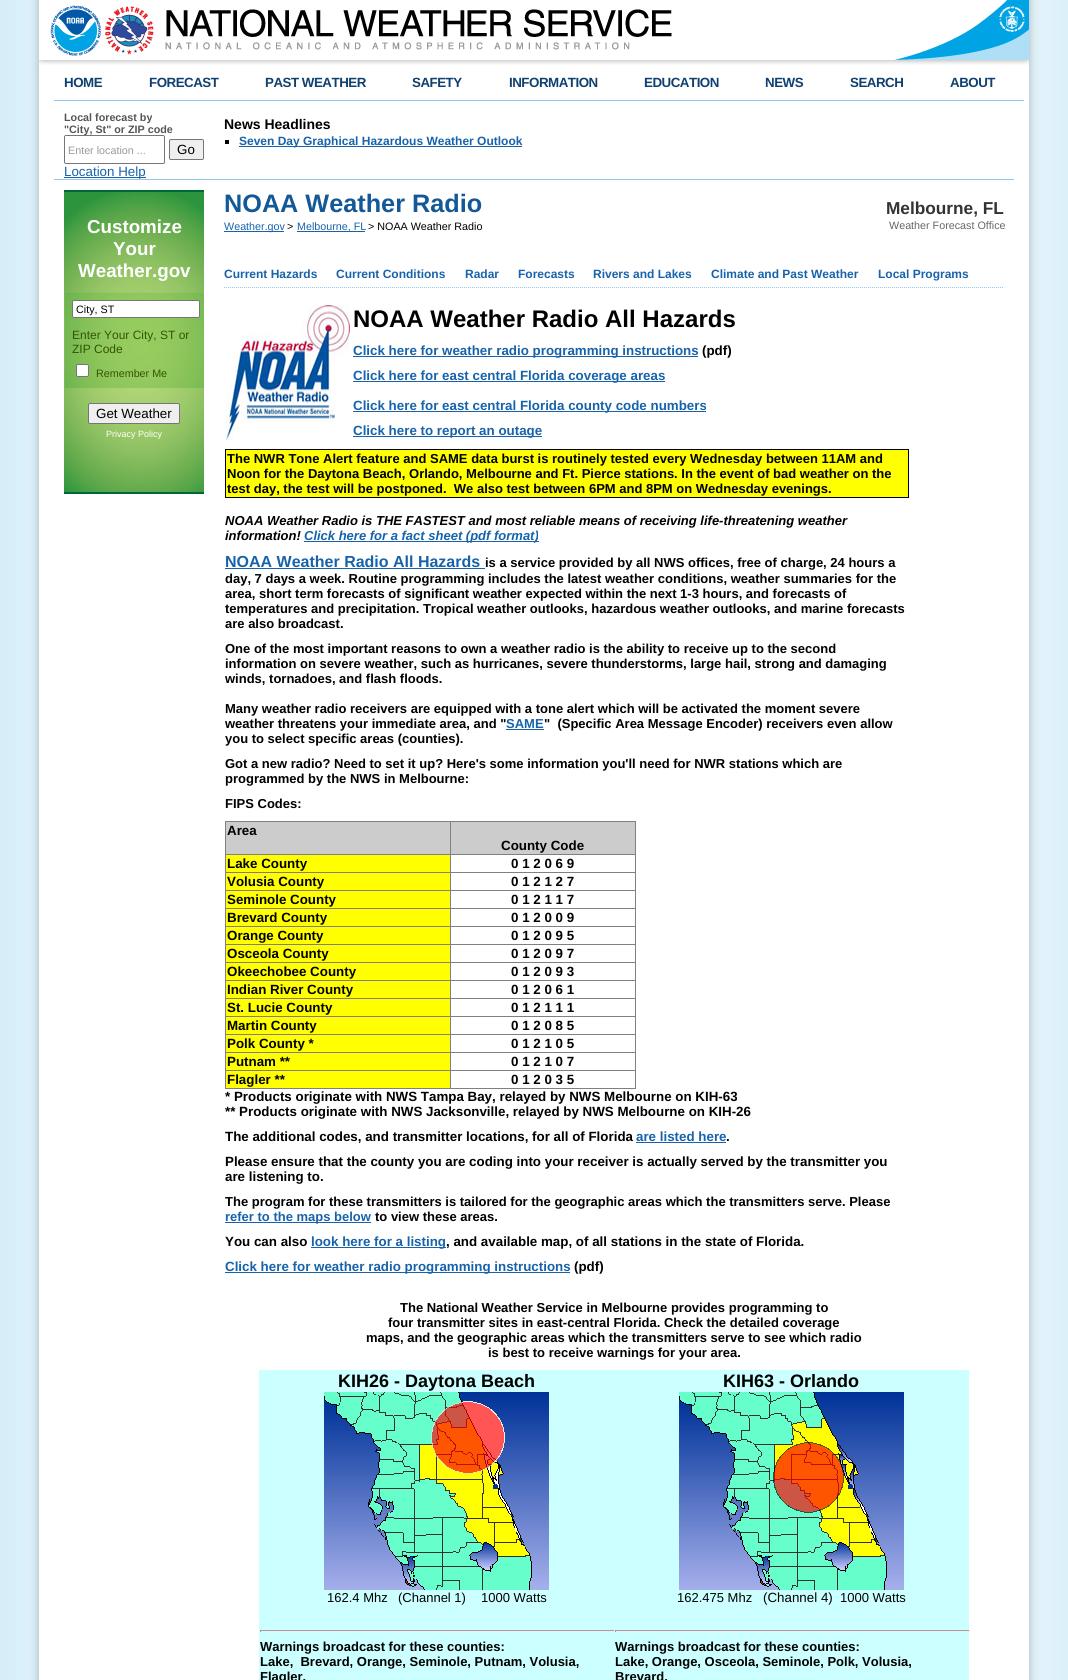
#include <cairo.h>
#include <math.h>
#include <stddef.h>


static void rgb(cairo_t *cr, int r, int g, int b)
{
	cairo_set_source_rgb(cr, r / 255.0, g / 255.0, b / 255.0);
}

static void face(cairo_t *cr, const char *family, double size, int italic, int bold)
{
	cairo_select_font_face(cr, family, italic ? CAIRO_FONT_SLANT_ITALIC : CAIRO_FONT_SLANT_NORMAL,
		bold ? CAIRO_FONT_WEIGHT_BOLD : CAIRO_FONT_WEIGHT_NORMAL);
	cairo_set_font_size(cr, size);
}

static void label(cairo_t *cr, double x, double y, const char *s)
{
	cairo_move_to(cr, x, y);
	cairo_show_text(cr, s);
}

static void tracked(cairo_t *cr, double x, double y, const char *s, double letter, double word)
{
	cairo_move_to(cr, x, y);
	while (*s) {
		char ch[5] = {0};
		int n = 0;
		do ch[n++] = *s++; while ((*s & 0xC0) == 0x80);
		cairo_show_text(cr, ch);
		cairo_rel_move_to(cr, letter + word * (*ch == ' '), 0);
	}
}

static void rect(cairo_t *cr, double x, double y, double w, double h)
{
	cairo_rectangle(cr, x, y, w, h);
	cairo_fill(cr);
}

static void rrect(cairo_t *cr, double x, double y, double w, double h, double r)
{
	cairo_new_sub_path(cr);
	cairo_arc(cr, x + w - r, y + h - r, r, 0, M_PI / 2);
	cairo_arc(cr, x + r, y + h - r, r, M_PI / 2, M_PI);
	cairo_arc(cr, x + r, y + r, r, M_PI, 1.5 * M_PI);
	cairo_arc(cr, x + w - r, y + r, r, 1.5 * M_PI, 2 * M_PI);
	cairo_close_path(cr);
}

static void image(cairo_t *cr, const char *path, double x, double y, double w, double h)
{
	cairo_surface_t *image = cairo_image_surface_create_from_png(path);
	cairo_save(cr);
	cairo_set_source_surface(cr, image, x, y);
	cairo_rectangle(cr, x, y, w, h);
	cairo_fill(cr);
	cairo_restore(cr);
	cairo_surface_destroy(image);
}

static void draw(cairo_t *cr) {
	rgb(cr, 255, 255, 255);
	cairo_paint(cr);
	image(cr, "image0.png", 0, 0, 1068, 60);
	image(cr, "image1.png", 50, 5, 622, 51);
	image(cr, "image2.png", 894, 0, 135, 60);
	image(cr, "image3.png", 0, 60, 1068, 10);
	image(cr, "image4.png", 39, 60, 990, 5);
	image(cr, "image5.png", 0, 70, 1068, 1610);
	rgb(cr, 148, 198, 239);
	rect(cr, 54, 100, 970, 1);
	face(cr, "Liberation Sans", 13.35, 0, 1);
	rgb(cr, 16, 64, 112);
	tracked(cr, 64, 87, "HOME", -0.5, 0);
	tracked(cr, 149, 87, "FORECAST", -0.5, 0);
	tracked(cr, 265, 87, "PAST WEATHER", -0.5, 0);
	tracked(cr, 412, 87, "SAFETY", -0.5, 0);
	tracked(cr, 509, 87, "INFORMATION", -0.5, 0);
	tracked(cr, 644, 87, "EDUCATION", -0.5, 0);
	tracked(cr, 765, 87, "NEWS", -0.5, 0);
	tracked(cr, 850, 87, "SEARCH", -0.5, 0);
	tracked(cr, 950, 87, "ABOUT", -0.5, 0);
	face(cr, "Liberation Sans", 10.75, 0, 1);
	rgb(cr, 85, 85, 85);
	label(cr, 64, 121, "Local forecast by");
	label(cr, 64, 133, "\"City, St\" or ZIP code");
	rgb(cr, 255, 255, 255);
	rrect(cr, 64.5, 135.5, 100, 28, 1.5);
	cairo_fill_preserve(cr);
	rgb(cr, 118, 118, 118);
	cairo_set_line_width(cr, 1);
	cairo_stroke(cr);
	face(cr, "Liberation Sans", 10.75, 0, 0);
	rgb(cr, 153, 153, 153);
	label(cr, 68, 154, "Enter location ...");
	rgb(cr, 239, 239, 239);
	rrect(cr, 169.5, 139.5, 34, 20, 1.5);
	cairo_fill_preserve(cr);
	rgb(cr, 118, 118, 118);
	cairo_stroke(cr);
	face(cr, "Liberation Sans", 13.35, 0, 0);
	rgb(cr, 0, 0, 0);
	label(cr, 177, 154, "Go");
	rgb(cr, 23, 99, 171);
	rect(cr, 64, 177, 82, 1);
	label(cr, 64, 176, "Location Help");
	face(cr, "Liberation Sans", 14, 0, 1);
	rgb(cr, 0, 0, 0);
	label(cr, 224, 129, "News Headlines");
	rect(cr, 225, 140, 4, 4);
	rgb(cr, 23, 99, 171);
	rect(cr, 239, 146, 283, 1);
	face(cr, "Liberation Sans", 12, 0, 1);
	label(cr, 239, 145, "Seven Day Graphical Hazardous Weather Outlook");
	rgb(cr, 148, 198, 239);
	rect(cr, 54, 179, 960, 1);
	image(cr, "image6.png", 64, 192, 140, 300);
	rgb(cr, 0, 104, 56);
	rect(cr, 64, 190, 140, 2);
	rect(cr, 64, 492, 140, 2);
	face(cr, "Liberation Sans", 18.75, 0, 1);
	rgb(cr, 255, 255, 255);
	label(cr, 87, 233, "Customize");
	label(cr, 113, 255, "Your");
	label(cr, 78, 277, "Weather.gov");
	image(cr, "image7.png", 64, 292, 140, 96);
	rrect(cr, 72.5, 300.5, 127, 17, 1.5);
	cairo_fill_preserve(cr);
	rgb(cr, 118, 118, 118);
	cairo_stroke(cr);
	face(cr, "Liberation Sans", 10.75, 0, 0);
	rgb(cr, 0, 0, 0);
	label(cr, 76, 313, "City, ST");
	face(cr, "Liberation Sans", 12, 0, 0);
	rgb(cr, 51, 85, 0);
	label(cr, 72, 339, "Enter Your City, ST or");
	label(cr, 72, 353, "ZIP Code");
	rgb(cr, 255, 255, 255);
	rrect(cr, 76.5, 364.5, 12, 12, 1.5);
	cairo_fill_preserve(cr);
	rgb(cr, 118, 118, 118);
	cairo_stroke(cr);
	face(cr, "Liberation Sans", 10.75, 0, 0);
	rgb(cr, 51, 85, 0);
	label(cr, 96, 377, "Remember Me");
	rgb(cr, 239, 239, 239);
	rrect(cr, 88.5, 403.5, 91, 20, 1.5);
	cairo_fill_preserve(cr);
	rgb(cr, 118, 118, 118);
	cairo_stroke(cr);
	face(cr, "Liberation Sans", 13.35, 0, 0);
	rgb(cr, 0, 0, 0);
	label(cr, 96, 418, "Get Weather");
	face(cr, "Liberation Sans", 9, 0, 0);
	rgb(cr, 255, 255, 255);
	label(cr, 106, 437, "Privacy Policy");
	face(cr, "Liberation Sans", 25.25, 0, 1);
	rgb(cr, 19, 88, 151);
	label(cr, 224, 212, "NOAA Weather Radio");
	rgb(cr, 23, 99, 171);
	rect(cr, 224, 231, 60, 1);
	face(cr, "Liberation Sans", 10.75, 0, 0);
	label(cr, 224, 230, "Weather.gov");
	rgb(cr, 0, 0, 0);
	label(cr, 287, 230, ">");
	rgb(cr, 23, 99, 171);
	rect(cr, 297, 231, 68, 1);
	label(cr, 297, 230, "Melbourne, FL");
	rgb(cr, 0, 0, 0);
	label(cr, 368, 230, "> NOAA Weather Radio");
	face(cr, "Liberation Sans", 17.25, 0, 1);
	rgb(cr, 51, 51, 51);
	label(cr, 886, 214, "Melbourne, FL");
	face(cr, "Liberation Sans", 10.75, 0, 0);
	rgb(cr, 102, 102, 102);
	label(cr, 889, 229, "Weather Forecast Office");
	cairo_new_path(cr);
	cairo_move_to(cr, 224, 287.5);
	cairo_line_to(cr, 1004, 287.5);
	rgb(cr, 148, 198, 239);
	cairo_set_dash(cr, (double[]){1, 1}, 2, 0);
	cairo_stroke(cr);
	face(cr, "Liberation Sans", 12, 0, 1);
	rgb(cr, 23, 99, 171);
	label(cr, 224, 278, "Current Hazards");
	label(cr, 336, 278, "Current Conditions");
	label(cr, 465, 278, "Radar");
	label(cr, 518, 278, "Forecasts");
	label(cr, 593, 278, "Rivers and Lakes");
	label(cr, 711, 278, "Climate and Past Weather");
	label(cr, 878, 278, "Local Programs");
	image(cr, "image8.png", 226, 305, 124, 135);
	face(cr, "Liberation Sans", 24, 0, 1);
	rgb(cr, 0, 0, 0);
	label(cr, 353, 327, "NOAA Weather Radio All Hazards");
	rgb(cr, 23, 99, 171);
	rect(cr, 353, 356, 345, 1);
	face(cr, "Liberation Sans", 13.35, 0, 1);
	label(cr, 353, 355, "Click here for weather radio programming instructions");
	rgb(cr, 0, 0, 0);
	label(cr, 702, 355, "(pdf)");
	rgb(cr, 23, 99, 171);
	rect(cr, 353, 381, 312, 1);
	label(cr, 353, 380, "Click here for east central Florida coverage areas");
	rect(cr, 353, 411, 353, 1);
	label(cr, 353, 410, "Click here for east central Florida county code numbers");
	rect(cr, 353, 436, 189, 1);
	label(cr, 353, 435, "Click here to report an outage");
	rgb(cr, 0, 0, 0);
	rect(cr, 225, 449, 684, 1);
	rect(cr, 908, 449, 1, 49);
	rect(cr, 225, 497, 684, 1);
	rect(cr, 225, 449, 1, 49);
	rgb(cr, 255, 255, 0);
	rect(cr, 226, 450, 682, 47);
	face(cr, "Liberation Sans", 13, 0, 1);
	rgb(cr, 0, 0, 0);
	label(cr, 227, 463, "The NWR Tone Alert feature and SAME data burst is routinely tested every Wednesday between 11AM and");
	label(cr, 227, 478, "Noon for the Daytona Beach, Orlando, Melbourne and Ft. Pierce stations. In the event of bad weather on the");
	label(cr, 227, 493, "test day, the test will be postponed.  We also test between 6PM and 8PM on Wednesday evenings.");
	face(cr, "Liberation Sans", 13, 1, 1);
	label(cr, 225, 525, "NOAA Weather Radio is THE FASTEST and most reliable means of receiving life-threatening weather");
	label(cr, 225, 540, "information!");
	rgb(cr, 23, 99, 171);
	rect(cr, 304, 541, 235, 1);
	label(cr, 304, 540, "Click here for a fact sheet (pdf format)");
	face(cr, "Liberation Sans", 16, 0, 1);
	label(cr, 225, 567, "NOAA Weather Radio All Hazards");
	face(cr, "Liberation Sans", 13, 0, 1);
	rgb(cr, 0, 0, 0);
	label(cr, 485, 567, "is a service provided by all NWS offices, free of charge, 24 hours a");
	rgb(cr, 23, 99, 171);
	rect(cr, 225, 568, 260, 1);
	rgb(cr, 0, 0, 0);
	label(cr, 225, 583, "day, 7 days a week. Routine programming includes the latest weather conditions, weather summaries for the");
	label(cr, 225, 598, "area, short term forecasts of significant weather expected within the next 1-3 hours, and forecasts of");
	label(cr, 225, 613, "temperatures and precipitation. Tropical weather outlooks, hazardous weather outlooks, and marine forecasts");
	label(cr, 225, 628, "are also broadcast.");
	label(cr, 225, 653, "One of the most important reasons to own a weather radio is the ability to receive up to the second");
	label(cr, 225, 668, "information on severe weather, such as hurricanes, severe thunderstorms, large hail, strong and damaging");
	label(cr, 225, 683, "winds, tornadoes, and flash floods.");
	label(cr, 225, 713, "Many weather radio receivers are equipped with a tone alert which will be activated the moment severe");
	label(cr, 225, 728, "weather threatens your immediate area, and \"");
	rgb(cr, 23, 99, 171);
	rect(cr, 506, 729, 38, 1);
	label(cr, 506, 728, "SAME");
	rgb(cr, 0, 0, 0);
	label(cr, 544, 728, "\"  (Specific Area Message Encoder) receivers even allow");
	label(cr, 225, 743, "you to select specific areas (counties).");
	label(cr, 225, 768, "Got a new radio? Need to set it up? Here's some information you'll need for NWR stations which are");
	label(cr, 225, 783, "programmed by the NWS in Melbourne:");
	label(cr, 225, 808, "FIPS Codes:");
	rgb(cr, 128, 128, 128);
	rect(cr, 225, 821, 411, 1);
	rect(cr, 635, 821, 1, 268);
	rect(cr, 225, 1088, 411, 1);
	rect(cr, 225, 821, 1, 268);
	rgb(cr, 204, 204, 204);
	rect(cr, 226, 822, 409, 32);
	face(cr, "Liberation Sans", 13.35, 0, 1);
	rgb(cr, 0, 0, 0);
	label(cr, 227, 835, "Area");
	rgb(cr, 128, 128, 128);
	rect(cr, 450, 854, 186, 1);
	rect(cr, 450, 872, 186, 1);
	rect(cr, 450, 890, 186, 1);
	rect(cr, 450, 908, 186, 1);
	rect(cr, 450, 926, 186, 1);
	rect(cr, 450, 944, 186, 1);
	rect(cr, 450, 962, 186, 1);
	rect(cr, 450, 980, 186, 1);
	rect(cr, 450, 998, 186, 1);
	rect(cr, 450, 1016, 186, 1);
	rect(cr, 450, 1034, 186, 1);
	rect(cr, 450, 1052, 186, 1);
	rect(cr, 450, 1070, 186, 1);
	rect(cr, 450, 1070, 1, 19);
	rect(cr, 225, 1070, 226, 1);
	rect(cr, 450, 1052, 1, 19);
	rect(cr, 225, 1052, 226, 1);
	rect(cr, 450, 1034, 1, 19);
	rect(cr, 225, 1034, 226, 1);
	rect(cr, 450, 1016, 1, 19);
	rect(cr, 225, 1016, 226, 1);
	rect(cr, 450, 998, 1, 19);
	rect(cr, 225, 998, 226, 1);
	rect(cr, 450, 980, 1, 19);
	rect(cr, 225, 980, 226, 1);
	rect(cr, 450, 962, 1, 19);
	rect(cr, 225, 962, 226, 1);
	rect(cr, 450, 944, 1, 19);
	rect(cr, 225, 944, 226, 1);
	rect(cr, 450, 926, 1, 19);
	rect(cr, 225, 926, 226, 1);
	rect(cr, 450, 908, 1, 19);
	rect(cr, 225, 908, 226, 1);
	rect(cr, 450, 890, 1, 19);
	rect(cr, 225, 890, 226, 1);
	rect(cr, 450, 872, 1, 19);
	rect(cr, 225, 872, 226, 1);
	rect(cr, 450, 854, 1, 19);
	rect(cr, 225, 854, 226, 1);
	rect(cr, 450, 821, 1, 34);
	rgb(cr, 0, 0, 0);
	label(cr, 501, 850, "County Code");
	rgb(cr, 255, 255, 0);
	rect(cr, 226, 855, 224, 17);
	rgb(cr, 0, 0, 0);
	label(cr, 227, 868, "Lake County");
	label(cr, 511, 868, "0 1 2 0 6 9");
	rgb(cr, 255, 255, 0);
	rect(cr, 226, 873, 224, 17);
	rgb(cr, 0, 0, 0);
	label(cr, 227, 886, "Volusia County");
	label(cr, 511, 886, "0 1 2 1 2 7");
	rgb(cr, 255, 255, 0);
	rect(cr, 226, 891, 224, 17);
	rgb(cr, 0, 0, 0);
	label(cr, 227, 904, "Seminole County");
	label(cr, 511, 904, "0 1 2 1 1 7");
	rgb(cr, 255, 255, 0);
	rect(cr, 226, 909, 224, 17);
	rgb(cr, 0, 0, 0);
	label(cr, 227, 922, "Brevard County");
	label(cr, 511, 922, "0 1 2 0 0 9");
	rgb(cr, 255, 255, 0);
	rect(cr, 226, 927, 224, 17);
	rgb(cr, 0, 0, 0);
	label(cr, 227, 940, "Orange County");
	label(cr, 511, 940, "0 1 2 0 9 5");
	rgb(cr, 255, 255, 0);
	rect(cr, 226, 945, 224, 17);
	rgb(cr, 0, 0, 0);
	label(cr, 227, 958, "Osceola County");
	label(cr, 511, 958, "0 1 2 0 9 7");
	rgb(cr, 255, 255, 0);
	rect(cr, 226, 963, 224, 17);
	rgb(cr, 0, 0, 0);
	label(cr, 227, 976, "Okeechobee County");
	label(cr, 511, 976, "0 1 2 0 9 3");
	rgb(cr, 255, 255, 0);
	rect(cr, 226, 981, 224, 17);
	rgb(cr, 0, 0, 0);
	label(cr, 227, 994, "Indian River County");
	label(cr, 511, 994, "0 1 2 0 6 1");
	rgb(cr, 255, 255, 0);
	rect(cr, 226, 999, 224, 17);
	rgb(cr, 0, 0, 0);
	label(cr, 227, 1012, "St. Lucie County");
	label(cr, 511, 1012, "0 1 2 1 1 1");
	rgb(cr, 255, 255, 0);
	rect(cr, 226, 1017, 224, 17);
	rgb(cr, 0, 0, 0);
	label(cr, 227, 1030, "Martin County");
	label(cr, 511, 1030, "0 1 2 0 8 5");
	rgb(cr, 255, 255, 0);
	rect(cr, 226, 1035, 224, 17);
	rgb(cr, 0, 0, 0);
	label(cr, 227, 1048, "Polk County *");
	label(cr, 511, 1048, "0 1 2 1 0 5");
	rgb(cr, 255, 255, 0);
	rect(cr, 226, 1053, 224, 17);
	rgb(cr, 0, 0, 0);
	label(cr, 227, 1066, "Putnam **");
	label(cr, 511, 1066, "0 1 2 1 0 7");
	rgb(cr, 255, 255, 0);
	rect(cr, 226, 1071, 224, 17);
	rgb(cr, 0, 0, 0);
	label(cr, 227, 1084, "Flagler **");
	label(cr, 511, 1084, "0 1 2 0 3 5");
	label(cr, 225, 1101, "* Products originate with NWS Tampa Bay, relayed by NWS Melbourne on KIH-63");
	label(cr, 225, 1116, "** Products originate with NWS Jacksonville, relayed by NWS Melbourne on KIH-26");
	label(cr, 225, 1141, "The additional codes, and transmitter locations, for all of Florida");
	rgb(cr, 23, 99, 171);
	label(cr, 636, 1141, "are listed here");
	rect(cr, 636, 1142, 90, 1);
	rgb(cr, 0, 0, 0);
	label(cr, 726, 1141, ".");
	label(cr, 225, 1166, "Please ensure that the county you are coding into your receiver is actually served by the transmitter you");
	label(cr, 225, 1181, "are listening to.");
	face(cr, "Liberation Sans", 13, 0, 1);
	label(cr, 225, 1206, "The program for these transmitters is tailored for the geographic areas which the transmitters serve. Please");
	rgb(cr, 23, 99, 171);
	rect(cr, 225, 1222, 146, 1);
	label(cr, 225, 1221, "refer to the maps below");
	rgb(cr, 0, 0, 0);
	label(cr, 375, 1221, "to view these areas.");
	face(cr, "Liberation Sans", 13.35, 0, 1);
	label(cr, 225, 1246, "You can also");
	rgb(cr, 23, 99, 171);
	rect(cr, 311, 1247, 135, 1);
	label(cr, 311, 1246, "look here for a listing");
	rgb(cr, 0, 0, 0);
	label(cr, 446, 1246, ", and available map, of all stations in the state of Florida.");
	rgb(cr, 23, 99, 171);
	rect(cr, 225, 1272, 345, 1);
	label(cr, 225, 1271, "Click here for weather radio programming instructions");
	rgb(cr, 0, 0, 0);
	label(cr, 574, 1271, "(pdf)");
	face(cr, "Liberation Sans", 13, 0, 1);
	label(cr, 400, 1312, "The National Weather Service in Melbourne provides programming to");
	label(cr, 388, 1327, "four transmitter sites in east-central Florida. Check the detailed coverage");
	label(cr, 366, 1342, "maps, and the geographic areas which the transmitters serve to see which radio");
	label(cr, 488, 1357, "is best to receive warnings for your area.");
	rgb(cr, 204, 255, 255);
	rect(cr, 259, 1370, 710, 310);
	face(cr, "Liberation Sans", 18, 0, 1);
	rgb(cr, 0, 0, 0);
	label(cr, 338, 1387, "KIH26 - Daytona Beach");
	image(cr, "image9.png", 324, 1392, 225, 198);
	face(cr, "Liberation Sans", 13, 0, 0);
	label(cr, 327, 1602, "162.4 Mhz");
	label(cr, 398, 1602, "(Channel 1)");
	label(cr, 481, 1602, "1000 Watts");
	rgb(cr, 159, 159, 159);
	rect(cr, 260, 1630, 710, 1);
	rgb(cr, 238, 238, 238);
	rect(cr, 614, 1630, 1, 2);
	rect(cr, 260, 1631, 355, 1);
	rgb(cr, 159, 159, 159);
	rect(cr, 260, 1630, 1, 2);
	face(cr, "Liberation Sans", 13, 0, 1);
	rgb(cr, 0, 0, 0);
	label(cr, 260, 1651, "Warnings broadcast for these counties:");
	label(cr, 260, 1666, "Lake,  Brevard, Orange, Seminole, Putnam, Volusia,");
	label(cr, 260, 1681, "Flagler.");
	face(cr, "Liberation Sans", 18, 0, 1);
	label(cr, 723, 1387, "KIH63 - Orlando");
	image(cr, "image10.png", 679, 1392, 225, 198);
	face(cr, "Liberation Sans", 13, 0, 0);
	label(cr, 677, 1602, "162.475 Mhz");
	face(cr, "Liberation Sans", 13.35, 0, 0);
	label(cr, 763, 1602, "(Channel 4)");
	face(cr, "Liberation Sans", 13, 0, 0);
	label(cr, 840, 1602, "1000 Watts");
	rgb(cr, 238, 238, 238);
	rect(cr, 969, 1630, 1, 2);
	rect(cr, 615, 1631, 355, 1);
	rgb(cr, 159, 159, 159);
	rect(cr, 615, 1630, 1, 2);
	face(cr, "Liberation Sans", 13, 0, 1);
	rgb(cr, 0, 0, 0);
	label(cr, 615, 1651, "Warnings broadcast for these counties:");
	label(cr, 615, 1666, "Lake, Orange, Osceola, Seminole, Polk, Volusia,");
	label(cr, 615, 1681, "Brevard.");
}

int main(void) {
	cairo_surface_t *surface = cairo_image_surface_create(CAIRO_FORMAT_RGB24, 1068, 1680);
	cairo_t *cr = cairo_create(surface);
	cairo_font_options_t *options = cairo_font_options_create();
	cairo_font_options_set_hint_metrics(options, CAIRO_HINT_METRICS_OFF);
	cairo_font_options_set_hint_style(options, CAIRO_HINT_STYLE_NONE);
	cairo_set_font_options(cr, options);
	cairo_set_miter_limit(cr, 4);
	draw(cr);
	cairo_surface_write_to_png(surface, "render.png");
	cairo_font_options_destroy(options);
	cairo_destroy(cr);
	cairo_surface_destroy(surface);
	return 0;
}
